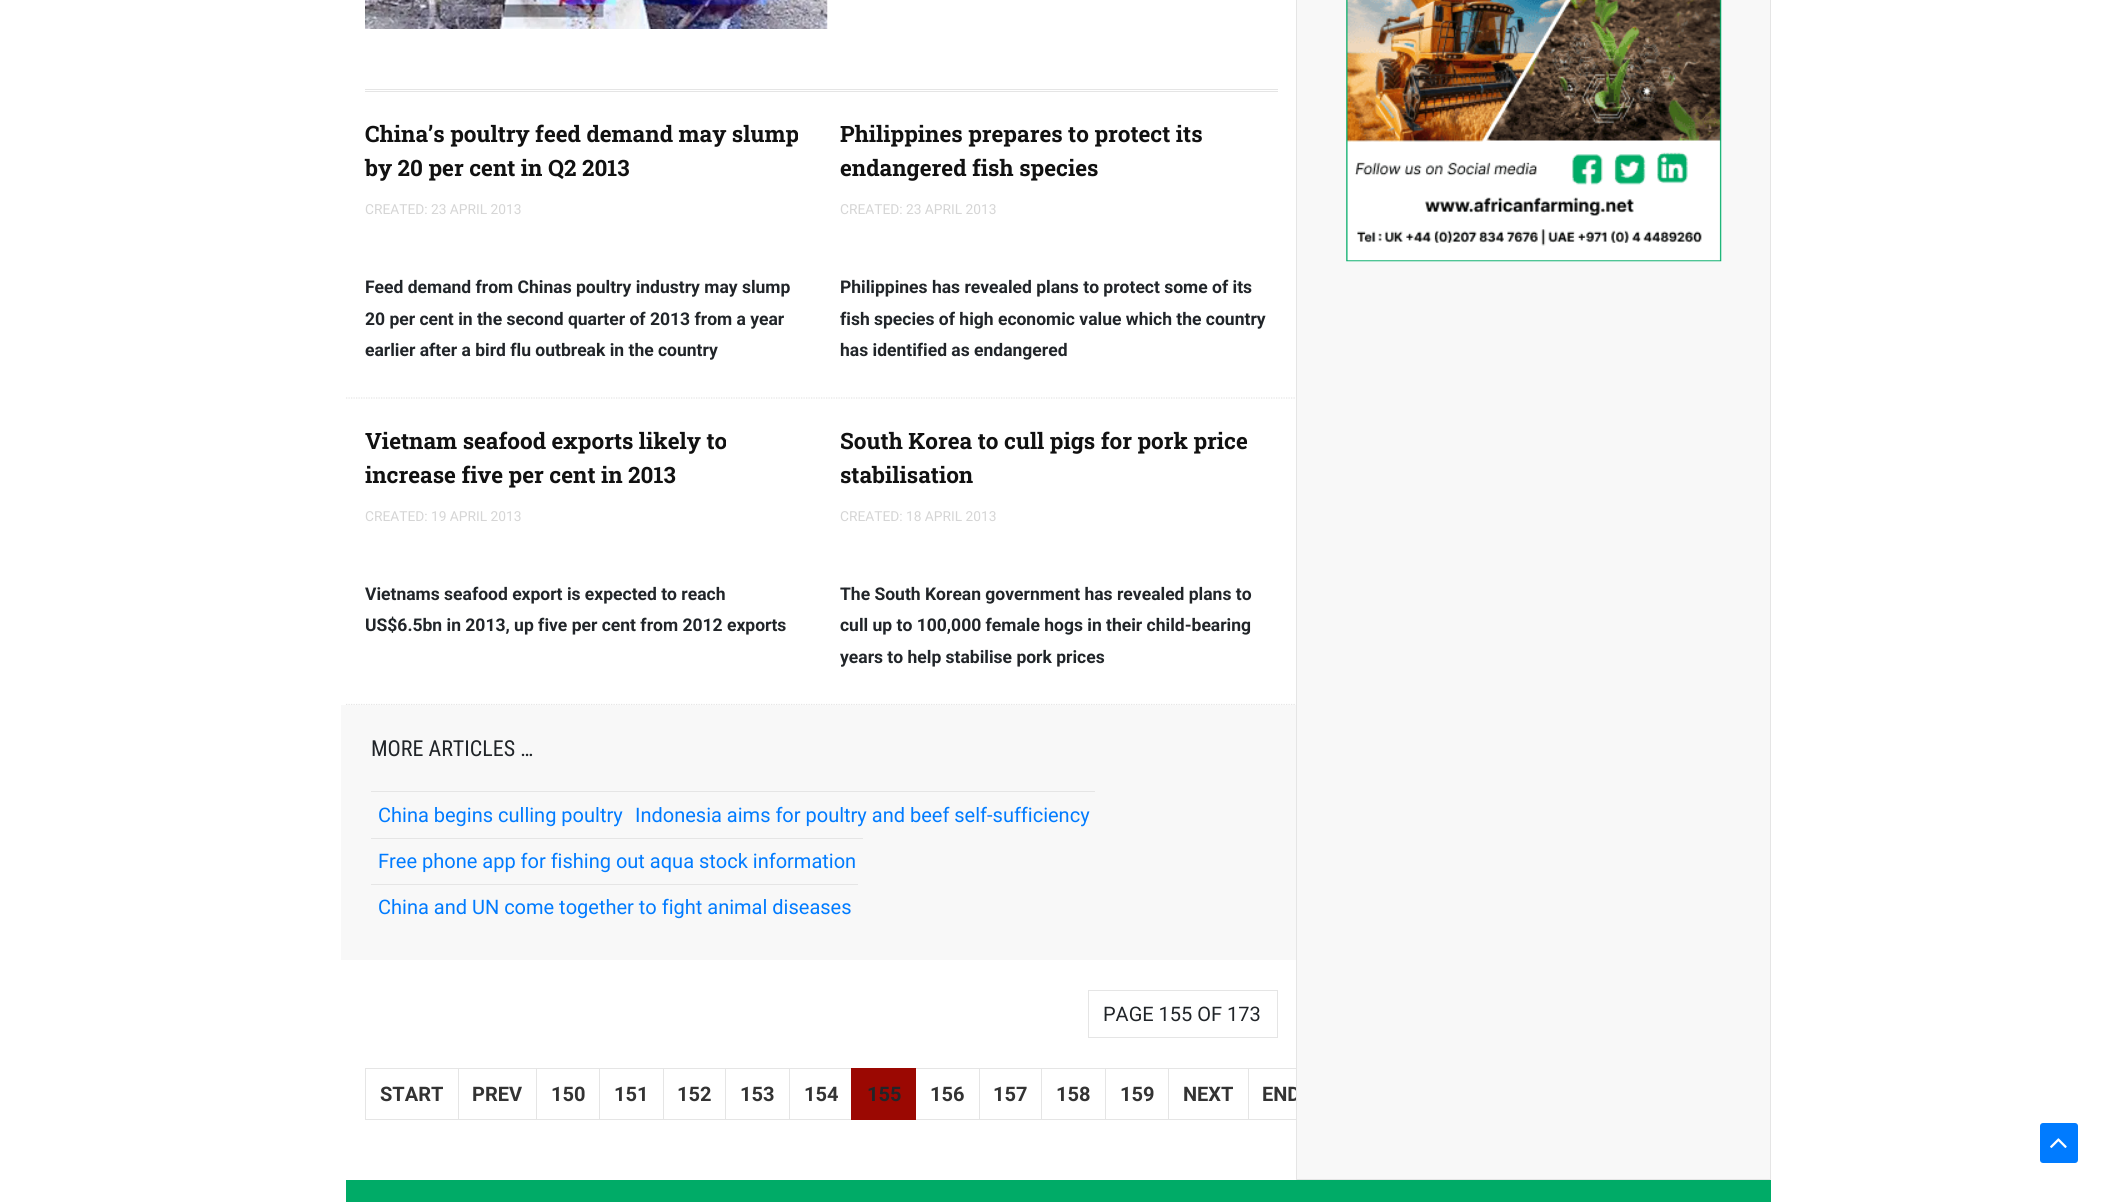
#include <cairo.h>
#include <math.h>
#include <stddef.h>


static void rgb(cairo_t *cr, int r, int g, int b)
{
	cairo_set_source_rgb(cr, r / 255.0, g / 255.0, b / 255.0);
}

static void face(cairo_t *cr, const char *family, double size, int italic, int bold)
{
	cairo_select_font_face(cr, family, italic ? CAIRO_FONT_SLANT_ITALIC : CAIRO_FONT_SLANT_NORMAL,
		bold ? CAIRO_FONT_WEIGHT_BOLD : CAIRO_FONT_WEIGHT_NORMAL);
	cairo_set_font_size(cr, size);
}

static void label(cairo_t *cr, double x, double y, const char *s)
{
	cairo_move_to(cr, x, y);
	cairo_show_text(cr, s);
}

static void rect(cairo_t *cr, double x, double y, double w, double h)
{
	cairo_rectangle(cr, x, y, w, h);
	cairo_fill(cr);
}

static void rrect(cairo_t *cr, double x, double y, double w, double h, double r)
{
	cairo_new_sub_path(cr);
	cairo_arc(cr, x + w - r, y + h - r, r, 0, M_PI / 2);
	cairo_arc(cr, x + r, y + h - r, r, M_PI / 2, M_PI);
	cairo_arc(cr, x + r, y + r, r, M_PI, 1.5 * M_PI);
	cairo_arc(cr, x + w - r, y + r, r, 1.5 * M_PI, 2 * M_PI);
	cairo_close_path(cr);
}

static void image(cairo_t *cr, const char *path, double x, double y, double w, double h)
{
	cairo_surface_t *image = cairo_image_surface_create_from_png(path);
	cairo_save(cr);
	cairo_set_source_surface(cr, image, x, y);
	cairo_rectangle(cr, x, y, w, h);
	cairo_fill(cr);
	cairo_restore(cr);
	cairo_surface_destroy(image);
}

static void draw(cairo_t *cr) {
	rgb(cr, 255, 255, 255);
	cairo_paint(cr);
	rgb(cr, 229, 229, 229);
	rect(cr, 365, 89, 913, 1);
	rect(cr, 365, 91, 913, 1);
	image(cr, "image0.png", 365, 0, 463, 29);
	cairo_new_path(cr);
	cairo_move_to(cr, 346, 398);
	cairo_line_to(cr, 1296, 398);
	cairo_set_line_width(cr, 1.2);
	cairo_set_dash(cr, (double[]){1.25, 1.25}, 2, 0);
	cairo_stroke(cr);
	face(cr, "Roboto Slab", 22.5, 0, 1);
	rgb(cr, 17, 17, 17);
	label(cr, 365, 142, "China’s poultry feed demand may slump");
	label(cr, 365, 176, "by 20 per cent in Q2 2013");
	face(cr, "Roboto", 13.75, 0, 0);
	rgb(cr, 213, 213, 213);
	label(cr, 365, 214, "CREATED: 23 APRIL 2013");
	face(cr, "Roboto", 17.5, 0, 1);
	rgb(cr, 33, 37, 41);
	label(cr, 365, 293, "Feed demand from Chinas poultry industry may slump");
	label(cr, 365, 325, "20 per cent in the second quarter of 2013 from a year");
	label(cr, 365, 356, "earlier after a bird flu outbreak in the country");
	face(cr, "Roboto Slab", 22.5, 0, 1);
	rgb(cr, 17, 17, 17);
	label(cr, 840, 142, "Philippines prepares to protect its");
	label(cr, 840, 176, "endangered fish species");
	face(cr, "Roboto", 13.75, 0, 0);
	rgb(cr, 213, 213, 213);
	label(cr, 840, 214, "CREATED: 23 APRIL 2013");
	face(cr, "Roboto", 17.5, 0, 1);
	rgb(cr, 33, 37, 41);
	label(cr, 840, 293, "Philippines has revealed plans to protect some of its");
	label(cr, 840, 325, "fish species of high economic value which the country");
	label(cr, 840, 356, "has identified as endangered");
	cairo_new_path(cr);
	cairo_move_to(cr, 346, 704.5);
	cairo_line_to(cr, 1296, 704.5);
	rgb(cr, 229, 229, 229);
	cairo_stroke(cr);
	face(cr, "Roboto Slab", 22.5, 0, 1);
	rgb(cr, 17, 17, 17);
	label(cr, 365, 449, "Vietnam seafood exports likely to");
	label(cr, 365, 483, "increase five per cent in 2013");
	face(cr, "Roboto", 13.75, 0, 0);
	rgb(cr, 213, 213, 213);
	label(cr, 365, 521, "CREATED: 19 APRIL 2013");
	face(cr, "Roboto", 17.5, 0, 1);
	rgb(cr, 33, 37, 41);
	label(cr, 365, 600, "Vietnams seafood export is expected to reach");
	label(cr, 365, 631, "US$6.5bn in 2013, up five per cent from 2012 exports");
	face(cr, "Roboto Slab", 22.5, 0, 1);
	rgb(cr, 17, 17, 17);
	label(cr, 840, 449, "South Korea to cull pigs for pork price");
	label(cr, 840, 483, "stabilisation");
	face(cr, "Roboto", 13.75, 0, 0);
	rgb(cr, 213, 213, 213);
	label(cr, 840, 521, "CREATED: 18 APRIL 2013");
	face(cr, "Roboto", 17.5, 0, 1);
	rgb(cr, 33, 37, 41);
	label(cr, 840, 600, "The South Korean government has revealed plans to");
	label(cr, 840, 631, "cull up to 100,000 female hogs in their child-bearing");
	label(cr, 840, 663, "years to help stabilise pork prices");
	rgb(cr, 248, 248, 248);
	rect(cr, 341, 705, 955, 255);
	face(cr, "Roboto Condensed", 22, 0, 0);
	rgb(cr, 33, 37, 41);
	label(cr, 371, 756, "MORE ARTICLES …");
	rgb(cr, 229, 229, 229);
	rect(cr, 371, 791, 724, 1);
	face(cr, "Roboto", 20, 0, 0);
	rgb(cr, 0, 123, 255);
	label(cr, 378, 822, "China begins culling poultry");
	label(cr, 635, 822, "Indonesia aims for poultry and beef self-sufficiency");
	rgb(cr, 229, 229, 229);
	rect(cr, 371, 838, 492, 1);
	rgb(cr, 0, 123, 255);
	label(cr, 378, 868, "Free phone app for fishing out aqua stock information");
	rgb(cr, 229, 229, 229);
	rect(cr, 371, 884, 487, 1);
	rgb(cr, 0, 123, 255);
	label(cr, 378, 914, "China and UN come together to fight animal diseases");
	cairo_rectangle(cr, 1088.5, 990.5, 189, 47);
	rgb(cr, 229, 229, 229);
	cairo_set_line_width(cr, 1);
	cairo_set_dash(cr, NULL, 0, 0);
	cairo_stroke(cr);
	rgb(cr, 33, 37, 41);
	label(cr, 1103, 1021, "PAGE 155 OF 173");
	cairo_rectangle(cr, 365.5, 1068.5, 93, 51);
	rgb(cr, 229, 229, 229);
	cairo_stroke(cr);
	face(cr, "Roboto", 20, 0, 1);
	rgb(cr, 51, 51, 51);
	label(cr, 380, 1101, "START");
	cairo_rectangle(cr, 458.5, 1068.5, 79, 51);
	rgb(cr, 229, 229, 229);
	cairo_stroke(cr);
	rgb(cr, 51, 51, 51);
	label(cr, 472, 1101, "PREV");
	rgb(cr, 255, 255, 255);
	rect(cr, 537, 1069, 1, 50);
	cairo_rectangle(cr, 536.5, 1068.5, 63, 51);
	rgb(cr, 229, 229, 229);
	cairo_stroke(cr);
	rgb(cr, 51, 51, 51);
	label(cr, 551, 1101, "150");
	cairo_rectangle(cr, 599.5, 1068.5, 64, 51);
	rgb(cr, 229, 229, 229);
	cairo_stroke(cr);
	rgb(cr, 51, 51, 51);
	label(cr, 614, 1101, "151");
	cairo_rectangle(cr, 663.5, 1068.5, 62, 51);
	rgb(cr, 229, 229, 229);
	cairo_stroke(cr);
	rgb(cr, 51, 51, 51);
	label(cr, 677, 1101, "152");
	cairo_rectangle(cr, 725.5, 1068.5, 64, 51);
	rgb(cr, 229, 229, 229);
	cairo_stroke(cr);
	rgb(cr, 51, 51, 51);
	label(cr, 740, 1101, "153");
	cairo_rectangle(cr, 789.5, 1068.5, 63, 51);
	rgb(cr, 229, 229, 229);
	cairo_stroke(cr);
	rgb(cr, 51, 51, 51);
	label(cr, 804, 1101, "154");
	cairo_rectangle(cr, 915.5, 1068.5, 64, 51);
	rgb(cr, 229, 229, 229);
	cairo_stroke(cr);
	rgb(cr, 155, 8, 2);
	rect(cr, 851, 1068, 65, 52);
	rgb(cr, 33, 37, 41);
	label(cr, 867, 1101, "155");
	rgb(cr, 51, 51, 51);
	label(cr, 930, 1101, "156");
	cairo_rectangle(cr, 979.5, 1068.5, 63, 51);
	rgb(cr, 229, 229, 229);
	cairo_stroke(cr);
	rgb(cr, 51, 51, 51);
	label(cr, 993, 1101, "157");
	rgb(cr, 255, 255, 255);
	rect(cr, 1042, 1069, 1, 50);
	cairo_rectangle(cr, 1041.5, 1068.5, 64, 51);
	rgb(cr, 229, 229, 229);
	cairo_stroke(cr);
	rgb(cr, 51, 51, 51);
	label(cr, 1056, 1101, "158");
	cairo_rectangle(cr, 1105.5, 1068.5, 63, 51);
	rgb(cr, 229, 229, 229);
	cairo_stroke(cr);
	rgb(cr, 51, 51, 51);
	label(cr, 1120, 1101, "159");
	cairo_rectangle(cr, 1168.5, 1068.5, 80, 51);
	rgb(cr, 229, 229, 229);
	cairo_stroke(cr);
	rgb(cr, 51, 51, 51);
	label(cr, 1183, 1101, "NEXT");
	cairo_rectangle(cr, 1248.5, 1068.5, 66, 51);
	rgb(cr, 229, 229, 229);
	cairo_stroke(cr);
	rgb(cr, 51, 51, 51);
	label(cr, 1262, 1101, "END");
	rgb(cr, 248, 248, 248);
	cairo_rectangle(cr, 1296.5, -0.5, 474, 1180);
	cairo_fill_preserve(cr);
	rgb(cr, 229, 229, 229);
	cairo_stroke(cr);
	image(cr, "image1.png", 1346, 0, 376, 262);
	rgb(cr, 0, 123, 255);
	rrect(cr, 2040, 1123, 38, 40, 3);
	cairo_fill(cr);
	image(cr, "image2.png", 2050, 1138, 17, 10);
	rgb(cr, 0, 171, 103);
	rect(cr, 346, 1180, 1425, 22);
}

int main(void) {
	cairo_surface_t *surface = cairo_image_surface_create(CAIRO_FORMAT_RGB24, 2117, 1202);
	cairo_t *cr = cairo_create(surface);
	cairo_font_options_t *options = cairo_font_options_create();
	cairo_font_options_set_hint_metrics(options, CAIRO_HINT_METRICS_OFF);
	cairo_font_options_set_hint_style(options, CAIRO_HINT_STYLE_NONE);
	cairo_set_font_options(cr, options);
	cairo_set_miter_limit(cr, 4);
	draw(cr);
	cairo_surface_write_to_png(surface, "render.png");
	cairo_font_options_destroy(options);
	cairo_destroy(cr);
	cairo_surface_destroy(surface);
	return 0;
}
